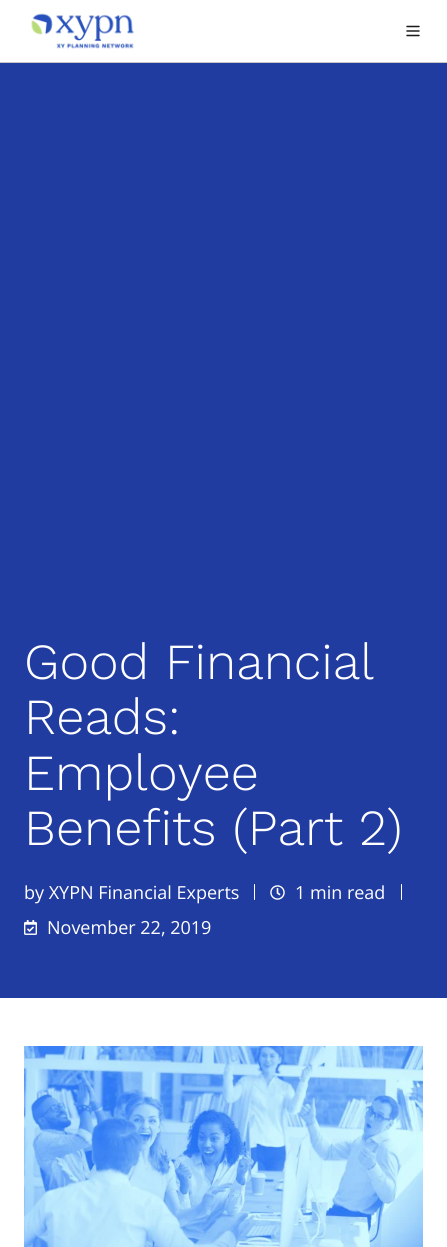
#include <cairo.h>
#include <math.h>
#include <stddef.h>


static void rgb(cairo_t *cr, int r, int g, int b)
{
	cairo_set_source_rgb(cr, r / 255.0, g / 255.0, b / 255.0);
}

static void face(cairo_t *cr, const char *family, double size, int italic, int bold)
{
	cairo_select_font_face(cr, family, italic ? CAIRO_FONT_SLANT_ITALIC : CAIRO_FONT_SLANT_NORMAL,
		bold ? CAIRO_FONT_WEIGHT_BOLD : CAIRO_FONT_WEIGHT_NORMAL);
	cairo_set_font_size(cr, size);
}

static void label(cairo_t *cr, double x, double y, const char *s)
{
	cairo_move_to(cr, x, y);
	cairo_show_text(cr, s);
}

static void rect(cairo_t *cr, double x, double y, double w, double h)
{
	cairo_rectangle(cr, x, y, w, h);
	cairo_fill(cr);
}

static void rrect(cairo_t *cr, double x, double y, double w, double h, double r)
{
	cairo_new_sub_path(cr);
	cairo_arc(cr, x + w - r, y + h - r, r, 0, M_PI / 2);
	cairo_arc(cr, x + r, y + h - r, r, M_PI / 2, M_PI);
	cairo_arc(cr, x + r, y + r, r, M_PI, 1.5 * M_PI);
	cairo_arc(cr, x + w - r, y + r, r, 1.5 * M_PI, 2 * M_PI);
	cairo_close_path(cr);
}

static void image(cairo_t *cr, const char *path, double x, double y, double w, double h)
{
	cairo_surface_t *image = cairo_image_surface_create_from_png(path);
	cairo_save(cr);
	cairo_set_source_surface(cr, image, x, y);
	cairo_rectangle(cr, x, y, w, h);
	cairo_fill(cr);
	cairo_restore(cr);
	cairo_surface_destroy(image);
}

static void draw(cairo_t *cr) {
	rgb(cr, 255, 255, 255);
	cairo_paint(cr);
	rgb(cr, 201, 200, 199);
	rect(cr, 0, 62, 447, 1);
	image(cr, "image0.png", 31, 13, 103, 36);
	image(cr, "image1.png", 406, 25, 14, 12);
	rgb(cr, 33, 60, 161);
	rect(cr, 0, 63, 447, 935);
	face(cr, "Work Sans Light", 50.5, 0, 0);
	rgb(cr, 255, 255, 255);
	label(cr, 24, 679, "Good Financial");
	label(cr, 24, 734, "Reads:");
	label(cr, 24, 790, "Employee");
	label(cr, 24, 845, "Benefits (Part 2)");
	face(cr, "Open Sans", 18, 0, 0);
	label(cr, 24, 899, "by XYPN Financial Experts");
	rrect(cr, 254, 884, 1, 16, 0.5);
	cairo_fill(cr);
	image(cr, "image2.png", 270, 885, 15, 15);
	label(cr, 295, 899, "1 min read");
	rrect(cr, 401, 884, 1, 16, 0.5);
	cairo_fill(cr);
	image(cr, "image3.png", 24, 920, 13, 15);
	label(cr, 47, 934, "November 22, 2019");
	image(cr, "image4.png", 24, 1046, 399, 201);
}

int main(void) {
	cairo_surface_t *surface = cairo_image_surface_create(CAIRO_FORMAT_RGB24, 447, 1247);
	cairo_t *cr = cairo_create(surface);
	cairo_font_options_t *options = cairo_font_options_create();
	cairo_font_options_set_hint_metrics(options, CAIRO_HINT_METRICS_OFF);
	cairo_font_options_set_hint_style(options, CAIRO_HINT_STYLE_NONE);
	cairo_set_font_options(cr, options);
	cairo_set_miter_limit(cr, 4);
	draw(cr);
	cairo_surface_write_to_png(surface, "render.png");
	cairo_font_options_destroy(options);
	cairo_destroy(cr);
	cairo_surface_destroy(surface);
	return 0;
}
